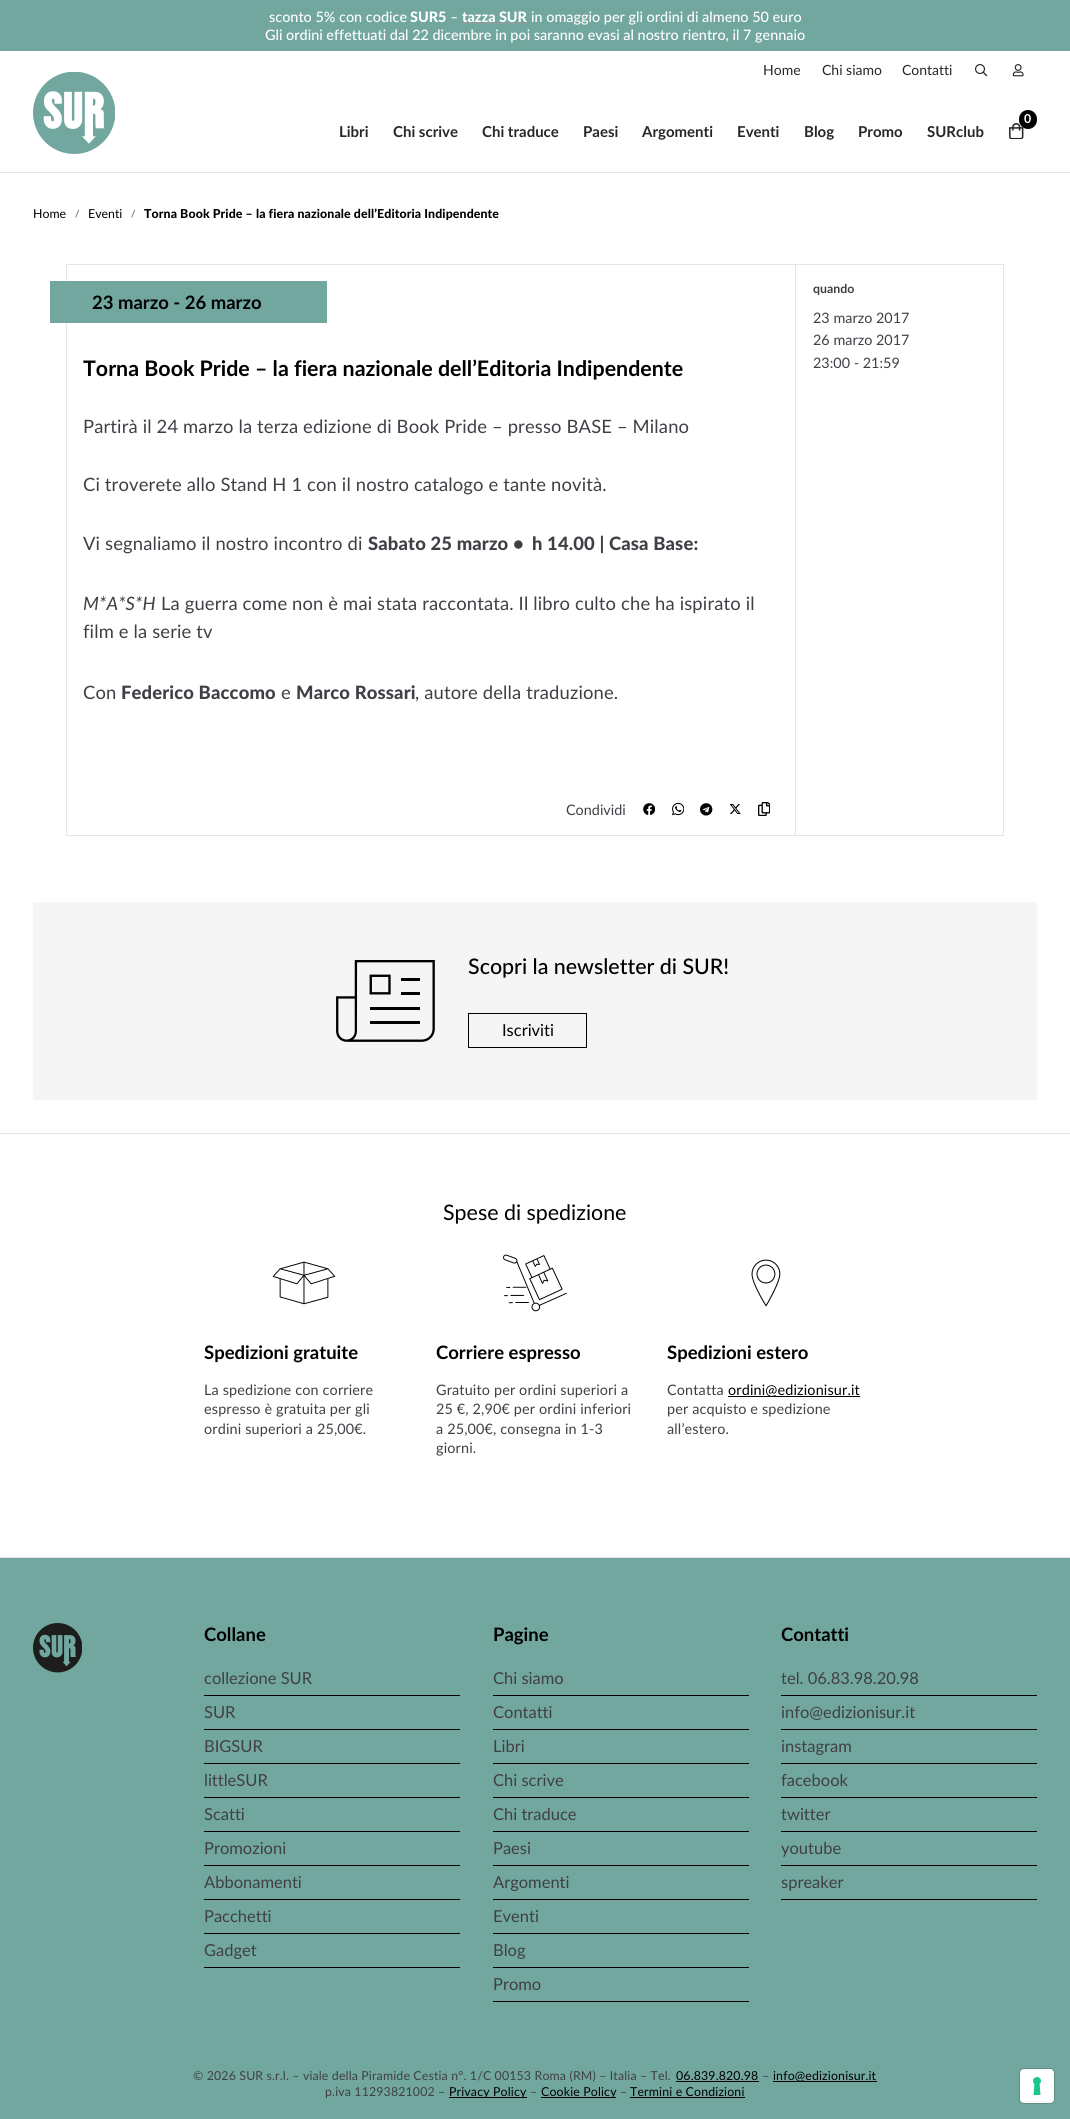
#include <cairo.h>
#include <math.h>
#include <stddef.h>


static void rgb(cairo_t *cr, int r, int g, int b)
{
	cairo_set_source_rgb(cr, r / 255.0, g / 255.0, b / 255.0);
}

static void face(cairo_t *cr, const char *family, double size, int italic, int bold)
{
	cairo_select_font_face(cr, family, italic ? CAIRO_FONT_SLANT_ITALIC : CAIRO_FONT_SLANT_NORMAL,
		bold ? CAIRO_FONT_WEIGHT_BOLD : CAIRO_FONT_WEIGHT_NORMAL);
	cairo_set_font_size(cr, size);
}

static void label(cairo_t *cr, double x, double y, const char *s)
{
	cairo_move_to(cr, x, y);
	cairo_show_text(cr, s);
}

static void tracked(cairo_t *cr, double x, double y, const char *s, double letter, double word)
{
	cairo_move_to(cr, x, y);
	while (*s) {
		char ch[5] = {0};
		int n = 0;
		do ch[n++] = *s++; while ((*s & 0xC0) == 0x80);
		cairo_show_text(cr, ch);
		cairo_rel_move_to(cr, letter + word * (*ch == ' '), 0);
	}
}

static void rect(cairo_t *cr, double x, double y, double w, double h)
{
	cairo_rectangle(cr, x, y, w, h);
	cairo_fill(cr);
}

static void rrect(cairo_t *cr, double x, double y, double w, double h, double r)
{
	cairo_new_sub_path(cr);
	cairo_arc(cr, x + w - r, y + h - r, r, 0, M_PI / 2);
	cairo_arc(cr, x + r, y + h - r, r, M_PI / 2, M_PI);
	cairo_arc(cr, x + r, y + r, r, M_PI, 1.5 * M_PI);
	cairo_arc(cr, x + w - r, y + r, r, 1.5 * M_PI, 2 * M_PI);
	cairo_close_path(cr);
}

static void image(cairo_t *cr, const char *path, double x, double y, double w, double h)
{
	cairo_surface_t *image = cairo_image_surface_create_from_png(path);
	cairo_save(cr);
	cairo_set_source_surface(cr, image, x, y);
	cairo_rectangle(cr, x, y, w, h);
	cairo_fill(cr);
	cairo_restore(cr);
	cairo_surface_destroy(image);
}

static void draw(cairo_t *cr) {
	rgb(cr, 255, 255, 255);
	cairo_paint(cr);
	rgb(cr, 228, 228, 231);
	rect(cr, 0, 172, 1070, 1);
	rgb(cr, 114, 167, 160);
	rect(cr, 0, 0, 1070, 51);
	face(cr, "Lato Medium", 14.4, 0, 0);
	rgb(cr, 255, 255, 255);
	label(cr, 269, 22, "sconto 5% con codice");
	face(cr, "Lato Black", 14.4, 0, 0);
	label(cr, 410, 22, "SUR5");
	face(cr, "Lato Medium", 14.4, 0, 0);
	label(cr, 450, 22, "–");
	face(cr, "Lato Black", 14.4, 0, 0);
	label(cr, 462, 22, "tazza SUR");
	rgb(cr, 153, 153, 153);
	rect(cr, 462, 23, 65, 1);
	face(cr, "Lato Medium", 14.4, 0, 0);
	rgb(cr, 255, 255, 255);
	label(cr, 531, 22, "in omaggio per gli ordini di almeno 50 euro");
	label(cr, 265, 40, "Gli ordini effettuati dal 22 dicembre in poi saranno evasi al nostro rientro, il 7 gennaio");
	face(cr, "Lato", 14, 0, 0);
	rgb(cr, 39, 39, 39);
	label(cr, 763, 75, "Home");
	label(cr, 822, 75, "Chi siamo");
	label(cr, 902, 75, "Contatti");
	image(cr, "image0.png", 975, 64, 13, 13);
	image(cr, "image1.png", 1012, 64, 12, 13);
	image(cr, "image2.png", 33, 72, 82, 82);
	image(cr, "image3.png", 1009, 123, 15, 16);
	rgb(cr, 0, 0, 0);
	rrect(cr, 1019, 110, 18, 19, 9);
	cairo_fill(cr);
	face(cr, "Lato", 12.35, 0, 1);
	rgb(cr, 255, 255, 255);
	label(cr, 1024, 123, "0");
	face(cr, "Lato", 15, 0, 1);
	rgb(cr, 39, 39, 39);
	label(cr, 339, 137, "Libri");
	label(cr, 393, 137, "Chi scrive");
	label(cr, 482, 137, "Chi traduce");
	label(cr, 583, 137, "Paesi");
	label(cr, 642, 137, "Argomenti");
	label(cr, 737, 137, "Eventi");
	label(cr, 804, 137, "Blog");
	label(cr, 858, 137, "Promo");
	label(cr, 927, 137, "SURclub");
	face(cr, "Lato", 12.35, 0, 0);
	rgb(cr, 0, 0, 0);
	label(cr, 33, 218, "Home");
	face(cr, "Lato", 10, 0, 0);
	rgb(cr, 63, 63, 70);
	tracked(cr, 75, 217, "/", 0.1, 0);
	face(cr, "Lato", 12.35, 0, 0);
	rgb(cr, 0, 0, 0);
	label(cr, 88, 218, "Eventi");
	face(cr, "Lato", 10, 0, 0);
	rgb(cr, 63, 63, 70);
	tracked(cr, 131, 217, "/", 0.1, 0);
	face(cr, "Lato Black", 12.35, 0, 0);
	rgb(cr, 0, 0, 0);
	tracked(cr, 144, 218, "Torna Book Pride – la fiera nazionale dell’Editoria Indipendente", 0.1, 0);
	cairo_rectangle(cr, 66.5, 264.5, 937, 571);
	rgb(cr, 229, 229, 229);
	cairo_set_line_width(cr, 1);
	cairo_stroke(cr);
	rgb(cr, 114, 167, 160);
	rect(cr, 50, 281, 277, 42);
	face(cr, "Lato", 18.5, 0, 1);
	rgb(cr, 0, 0, 0);
	label(cr, 92, 309, "23 marzo - 26 marzo");
	face(cr, "Lato", 21.4, 0, 1);
	label(cr, 83, 376, "Torna Book Pride – la fiera nazionale dell’Editoria Indipendente");
	face(cr, "Lato", 18.4, 0, 0);
	rgb(cr, 63, 63, 70);
	tracked(cr, 83, 433, "Partirà il 24 marzo la terza edizione di Book Pride – presso BASE – Milano", 0.15, 0);
	tracked(cr, 83, 491, "Ci troverete allo Stand H 1 con il nostro catalogo e tante novità.", 0.15, 0);
	tracked(cr, 83, 550, "Vi segnaliamo il nostro incontro di", 0.15, 0);
	face(cr, "Lato Black", 18.4, 0, 0);
	tracked(cr, 368, 550, "Sabato 25 marzo •", 0.15, 0);
	tracked(cr, 532, 550, "h 14.00 | Casa Base:", 0.15, 0);
	face(cr, "Lato", 18.4, 1, 0);
	tracked(cr, 83, 610, "M*A*S*H", 0.15, 0);
	face(cr, "Lato", 18.4, 0, 0);
	tracked(cr, 161, 610, "La guerra come non è mai stata raccontata. Il libro culto che ha ispirato il", 0.15, 0);
	tracked(cr, 83, 638, "film e la serie tv", 0.15, 0);
	tracked(cr, 83, 699, "Con", 0.15, 0);
	face(cr, "Lato Black", 18.4, 0, 0);
	tracked(cr, 121, 699, "Federico Baccomo", 0.15, 0);
	face(cr, "Lato", 18.4, 0, 0);
	tracked(cr, 281, 699, "e", 0.15, 0);
	face(cr, "Lato Black", 18.4, 0, 0);
	tracked(cr, 296, 699, "Marco Rossari", 0.15, 0);
	face(cr, "Lato", 18.4, 0, 0);
	tracked(cr, 415, 699, ", autore della traduzione.", 0.15, 0);
	face(cr, "Lato", 14.4, 0, 0);
	label(cr, 566, 815, "Condividi");
	image(cr, "image4.png", 643, 803, 12, 12);
	image(cr, "image5.png", 672, 802, 12, 14);
	image(cr, "image6.png", 700, 803, 13, 13);
	image(cr, "image7.png", 729, 804, 12, 10);
	image(cr, "image8.png", 758, 802, 12, 14);
	rgb(cr, 229, 229, 229);
	rect(cr, 795, 265, 1, 570);
	face(cr, "Lato", 12.35, 0, 1);
	rgb(cr, 63, 63, 70);
	label(cr, 813, 293, "quando");
	face(cr, "Lato", 14.4, 0, 0);
	label(cr, 813, 323, "23 marzo 2017");
	label(cr, 813, 345, "26 marzo 2017");
	label(cr, 813, 368, "23:00 - 21:59");
	rgb(cr, 245, 245, 245);
	rect(cr, 33, 902, 1004, 198);
	image(cr, "image9.png", 336, 960, 99, 82);
	face(cr, "Lato Medium", 21.4, 0, 0);
	rgb(cr, 0, 0, 0);
	label(cr, 468, 974, "Scopri la newsletter di SUR!");
	cairo_rectangle(cr, 468.5, 1013.5, 118, 34);
	cairo_stroke(cr);
	face(cr, "Lato", 16.5, 0, 0);
	label(cr, 502, 1036, "Iscriviti");
	rgb(cr, 229, 229, 229);
	rect(cr, 0, 1133, 1070, 1);
	face(cr, "Lato", 21.4, 0, 0);
	rgb(cr, 0, 0, 0);
	label(cr, 443, 1220, "Spese di spedizione");
	image(cr, "image10.png", 272, 1261, 64, 44);
	face(cr, "Lato", 18.5, 0, 1);
	label(cr, 204, 1359, "Spedizioni gratuite");
	face(cr, "Lato", 14.4, 0, 0);
	rgb(cr, 63, 63, 70);
	tracked(cr, 204, 1395, "La spedizione con corriere", 0.15, 0);
	tracked(cr, 204, 1414, "espresso è gratuita per gli", 0.15, 0);
	tracked(cr, 204, 1434, "ordini superiori a 25,00€.", 0.15, 0);
	image(cr, "image11.png", 503, 1254, 64, 58);
	face(cr, "Lato", 18.5, 0, 1);
	rgb(cr, 0, 0, 0);
	label(cr, 436, 1359, "Corriere espresso");
	face(cr, "Lato", 14.4, 0, 0);
	rgb(cr, 63, 63, 70);
	tracked(cr, 436, 1395, "Gratuito per ordini superiori a", 0.15, 0);
	tracked(cr, 436, 1414, "25 €, 2,90€ per ordini inferiori", 0.15, 0);
	tracked(cr, 436, 1434, "a 25,00€, consegna in 1-3", 0.15, 0);
	tracked(cr, 436, 1453, "giorni.", 0.15, 0);
	image(cr, "image12.png", 751, 1259, 30, 48);
	face(cr, "Lato", 18.5, 0, 1);
	rgb(cr, 0, 0, 0);
	label(cr, 667, 1359, "Spedizioni estero");
	face(cr, "Lato", 14.4, 0, 0);
	rgb(cr, 63, 63, 70);
	tracked(cr, 667, 1395, "Contatta", 0.15, 0);
	rgb(cr, 0, 0, 0);
	rect(cr, 728, 1396, 132, 1);
	tracked(cr, 728, 1395, "ordini@edizionisur.it", 0.15, 0);
	rgb(cr, 63, 63, 70);
	tracked(cr, 667, 1414, "per acquisto e spedizione", 0.15, 0);
	tracked(cr, 667, 1434, "all’estero.", 0.15, 0);
	rgb(cr, 114, 167, 160);
	rect(cr, 0, 1558, 1070, 561);
	rgb(cr, 229, 229, 229);
	rect(cr, 0, 1557, 1070, 1);
	image(cr, "image13.png", 33, 1623, 49, 50);
	face(cr, "Lato", 18.5, 0, 1);
	rgb(cr, 0, 0, 0);
	label(cr, 204, 1641, "Collane");
	rect(cr, 204, 1695, 256, 1);
	face(cr, "Lato", 16.5, 0, 0);
	rgb(cr, 63, 63, 70);
	label(cr, 204, 1684, "collezione SUR");
	rgb(cr, 0, 0, 0);
	rect(cr, 204, 1729, 256, 1);
	rgb(cr, 63, 63, 70);
	label(cr, 204, 1718, "SUR");
	rgb(cr, 0, 0, 0);
	rect(cr, 204, 1763, 256, 1);
	rgb(cr, 63, 63, 70);
	label(cr, 204, 1752, "BIGSUR");
	rgb(cr, 0, 0, 0);
	rect(cr, 204, 1797, 256, 1);
	rgb(cr, 63, 63, 70);
	label(cr, 204, 1786, "littleSUR");
	rgb(cr, 0, 0, 0);
	rect(cr, 204, 1831, 256, 1);
	rgb(cr, 63, 63, 70);
	label(cr, 204, 1820, "Scatti");
	rgb(cr, 0, 0, 0);
	rect(cr, 204, 1865, 256, 1);
	rgb(cr, 63, 63, 70);
	label(cr, 204, 1854, "Promozioni");
	rgb(cr, 0, 0, 0);
	rect(cr, 204, 1899, 256, 1);
	rgb(cr, 63, 63, 70);
	label(cr, 204, 1888, "Abbonamenti");
	rgb(cr, 0, 0, 0);
	rect(cr, 204, 1933, 256, 1);
	rgb(cr, 63, 63, 70);
	label(cr, 204, 1922, "Pacchetti");
	rgb(cr, 0, 0, 0);
	rect(cr, 204, 1967, 256, 1);
	rgb(cr, 63, 63, 70);
	label(cr, 204, 1956, "Gadget");
	face(cr, "Lato", 18.5, 0, 1);
	rgb(cr, 0, 0, 0);
	label(cr, 493, 1641, "Pagine");
	rect(cr, 493, 1695, 256, 1);
	face(cr, "Lato", 16.5, 0, 0);
	rgb(cr, 63, 63, 70);
	label(cr, 493, 1684, "Chi siamo");
	rgb(cr, 0, 0, 0);
	rect(cr, 493, 1729, 256, 1);
	rgb(cr, 63, 63, 70);
	label(cr, 493, 1718, "Contatti");
	rgb(cr, 0, 0, 0);
	rect(cr, 493, 1763, 256, 1);
	rgb(cr, 63, 63, 70);
	label(cr, 493, 1752, "Libri");
	rgb(cr, 0, 0, 0);
	rect(cr, 493, 1797, 256, 1);
	rgb(cr, 63, 63, 70);
	label(cr, 493, 1786, "Chi scrive");
	rgb(cr, 0, 0, 0);
	rect(cr, 493, 1831, 256, 1);
	rgb(cr, 63, 63, 70);
	label(cr, 493, 1820, "Chi traduce");
	rgb(cr, 0, 0, 0);
	rect(cr, 493, 1865, 256, 1);
	rgb(cr, 63, 63, 70);
	label(cr, 493, 1854, "Paesi");
	rgb(cr, 0, 0, 0);
	rect(cr, 493, 1899, 256, 1);
	rgb(cr, 63, 63, 70);
	label(cr, 493, 1888, "Argomenti");
	rgb(cr, 0, 0, 0);
	rect(cr, 493, 1933, 256, 1);
	rgb(cr, 63, 63, 70);
	label(cr, 493, 1922, "Eventi");
	rgb(cr, 0, 0, 0);
	rect(cr, 493, 1967, 256, 1);
	rgb(cr, 63, 63, 70);
	label(cr, 493, 1956, "Blog");
	rgb(cr, 0, 0, 0);
	rect(cr, 493, 2001, 256, 1);
	rgb(cr, 63, 63, 70);
	label(cr, 493, 1990, "Promo");
	face(cr, "Lato", 18.5, 0, 1);
	rgb(cr, 0, 0, 0);
	label(cr, 781, 1641, "Contatti");
	rect(cr, 781, 1695, 256, 1);
	face(cr, "Lato", 16.5, 0, 0);
	rgb(cr, 63, 63, 70);
	label(cr, 781, 1684, "tel. 06.83.98.20.98");
	rgb(cr, 0, 0, 0);
	rect(cr, 781, 1729, 256, 1);
	rgb(cr, 63, 63, 70);
	label(cr, 781, 1718, "info@edizionisur.it");
	rgb(cr, 0, 0, 0);
	rect(cr, 781, 1763, 256, 1);
	rgb(cr, 63, 63, 70);
	label(cr, 781, 1752, "instagram");
	rgb(cr, 0, 0, 0);
	rect(cr, 781, 1797, 256, 1);
	rgb(cr, 63, 63, 70);
	label(cr, 781, 1786, "facebook");
	rgb(cr, 0, 0, 0);
	rect(cr, 781, 1831, 256, 1);
	rgb(cr, 63, 63, 70);
	label(cr, 781, 1820, "twitter");
	rgb(cr, 0, 0, 0);
	rect(cr, 781, 1865, 256, 1);
	rgb(cr, 63, 63, 70);
	label(cr, 781, 1854, "youtube");
	rgb(cr, 0, 0, 0);
	rect(cr, 781, 1899, 256, 1);
	rgb(cr, 63, 63, 70);
	label(cr, 781, 1888, "spreaker");
	face(cr, "Lato", 12.35, 0, 0);
	tracked(cr, 193, 2080, "© 2026 SUR s.r.l. – viale della Piramide Cestia n°. 1/C 00153 Roma (RM) – Italia – Tel.", 0.15, 0);
	rgb(cr, 0, 0, 0);
	tracked(cr, 676, 2080, "06.839.820.98", 0.15, 0);
	rect(cr, 676, 2081, 83, 1);
	rgb(cr, 63, 63, 70);
	tracked(cr, 762, 2080, "–", 0.15, 0);
	rgb(cr, 0, 0, 0);
	rect(cr, 773, 2081, 104, 1);
	tracked(cr, 773, 2080, "info@edizionisur.it", 0.15, 0);
	rgb(cr, 63, 63, 70);
	tracked(cr, 325, 2096, "p.iva 11293821002 –", 0.15, 0);
	rgb(cr, 0, 0, 0);
	rect(cr, 449, 2097, 78, 1);
	tracked(cr, 449, 2096, "Privacy Policy", 0.15, 0);
	rgb(cr, 63, 63, 70);
	tracked(cr, 530, 2096, "–", 0.15, 0);
	rgb(cr, 0, 0, 0);
	rect(cr, 541, 2097, 75, 1);
	tracked(cr, 541, 2096, "Cookie Policy", 0.15, 0);
	rgb(cr, 63, 63, 70);
	tracked(cr, 620, 2096, "–", 0.15, 0);
	rgb(cr, 0, 0, 0);
	tracked(cr, 630, 2096, "Termini e Condizioni", 0.15, 0);
	rect(cr, 630, 2097, 115, 1);
	rrect(cr, 1019.5, 2068.5, 35, 35, 4.5);
	rgb(cr, 97, 142, 136);
	cairo_stroke(cr);
	rgb(cr, 255, 255, 255);
	rrect(cr, 1020, 2069, 34, 34, 4);
	cairo_fill(cr);
	image(cr, "image14.png", 1033, 2077, 8, 18);
}

int main(void) {
	cairo_surface_t *surface = cairo_image_surface_create(CAIRO_FORMAT_RGB24, 1070, 2119);
	cairo_t *cr = cairo_create(surface);
	cairo_font_options_t *options = cairo_font_options_create();
	cairo_font_options_set_hint_metrics(options, CAIRO_HINT_METRICS_OFF);
	cairo_font_options_set_hint_style(options, CAIRO_HINT_STYLE_NONE);
	cairo_set_font_options(cr, options);
	cairo_set_miter_limit(cr, 4);
	draw(cr);
	cairo_surface_write_to_png(surface, "render.png");
	cairo_font_options_destroy(options);
	cairo_destroy(cr);
	cairo_surface_destroy(surface);
	return 0;
}
